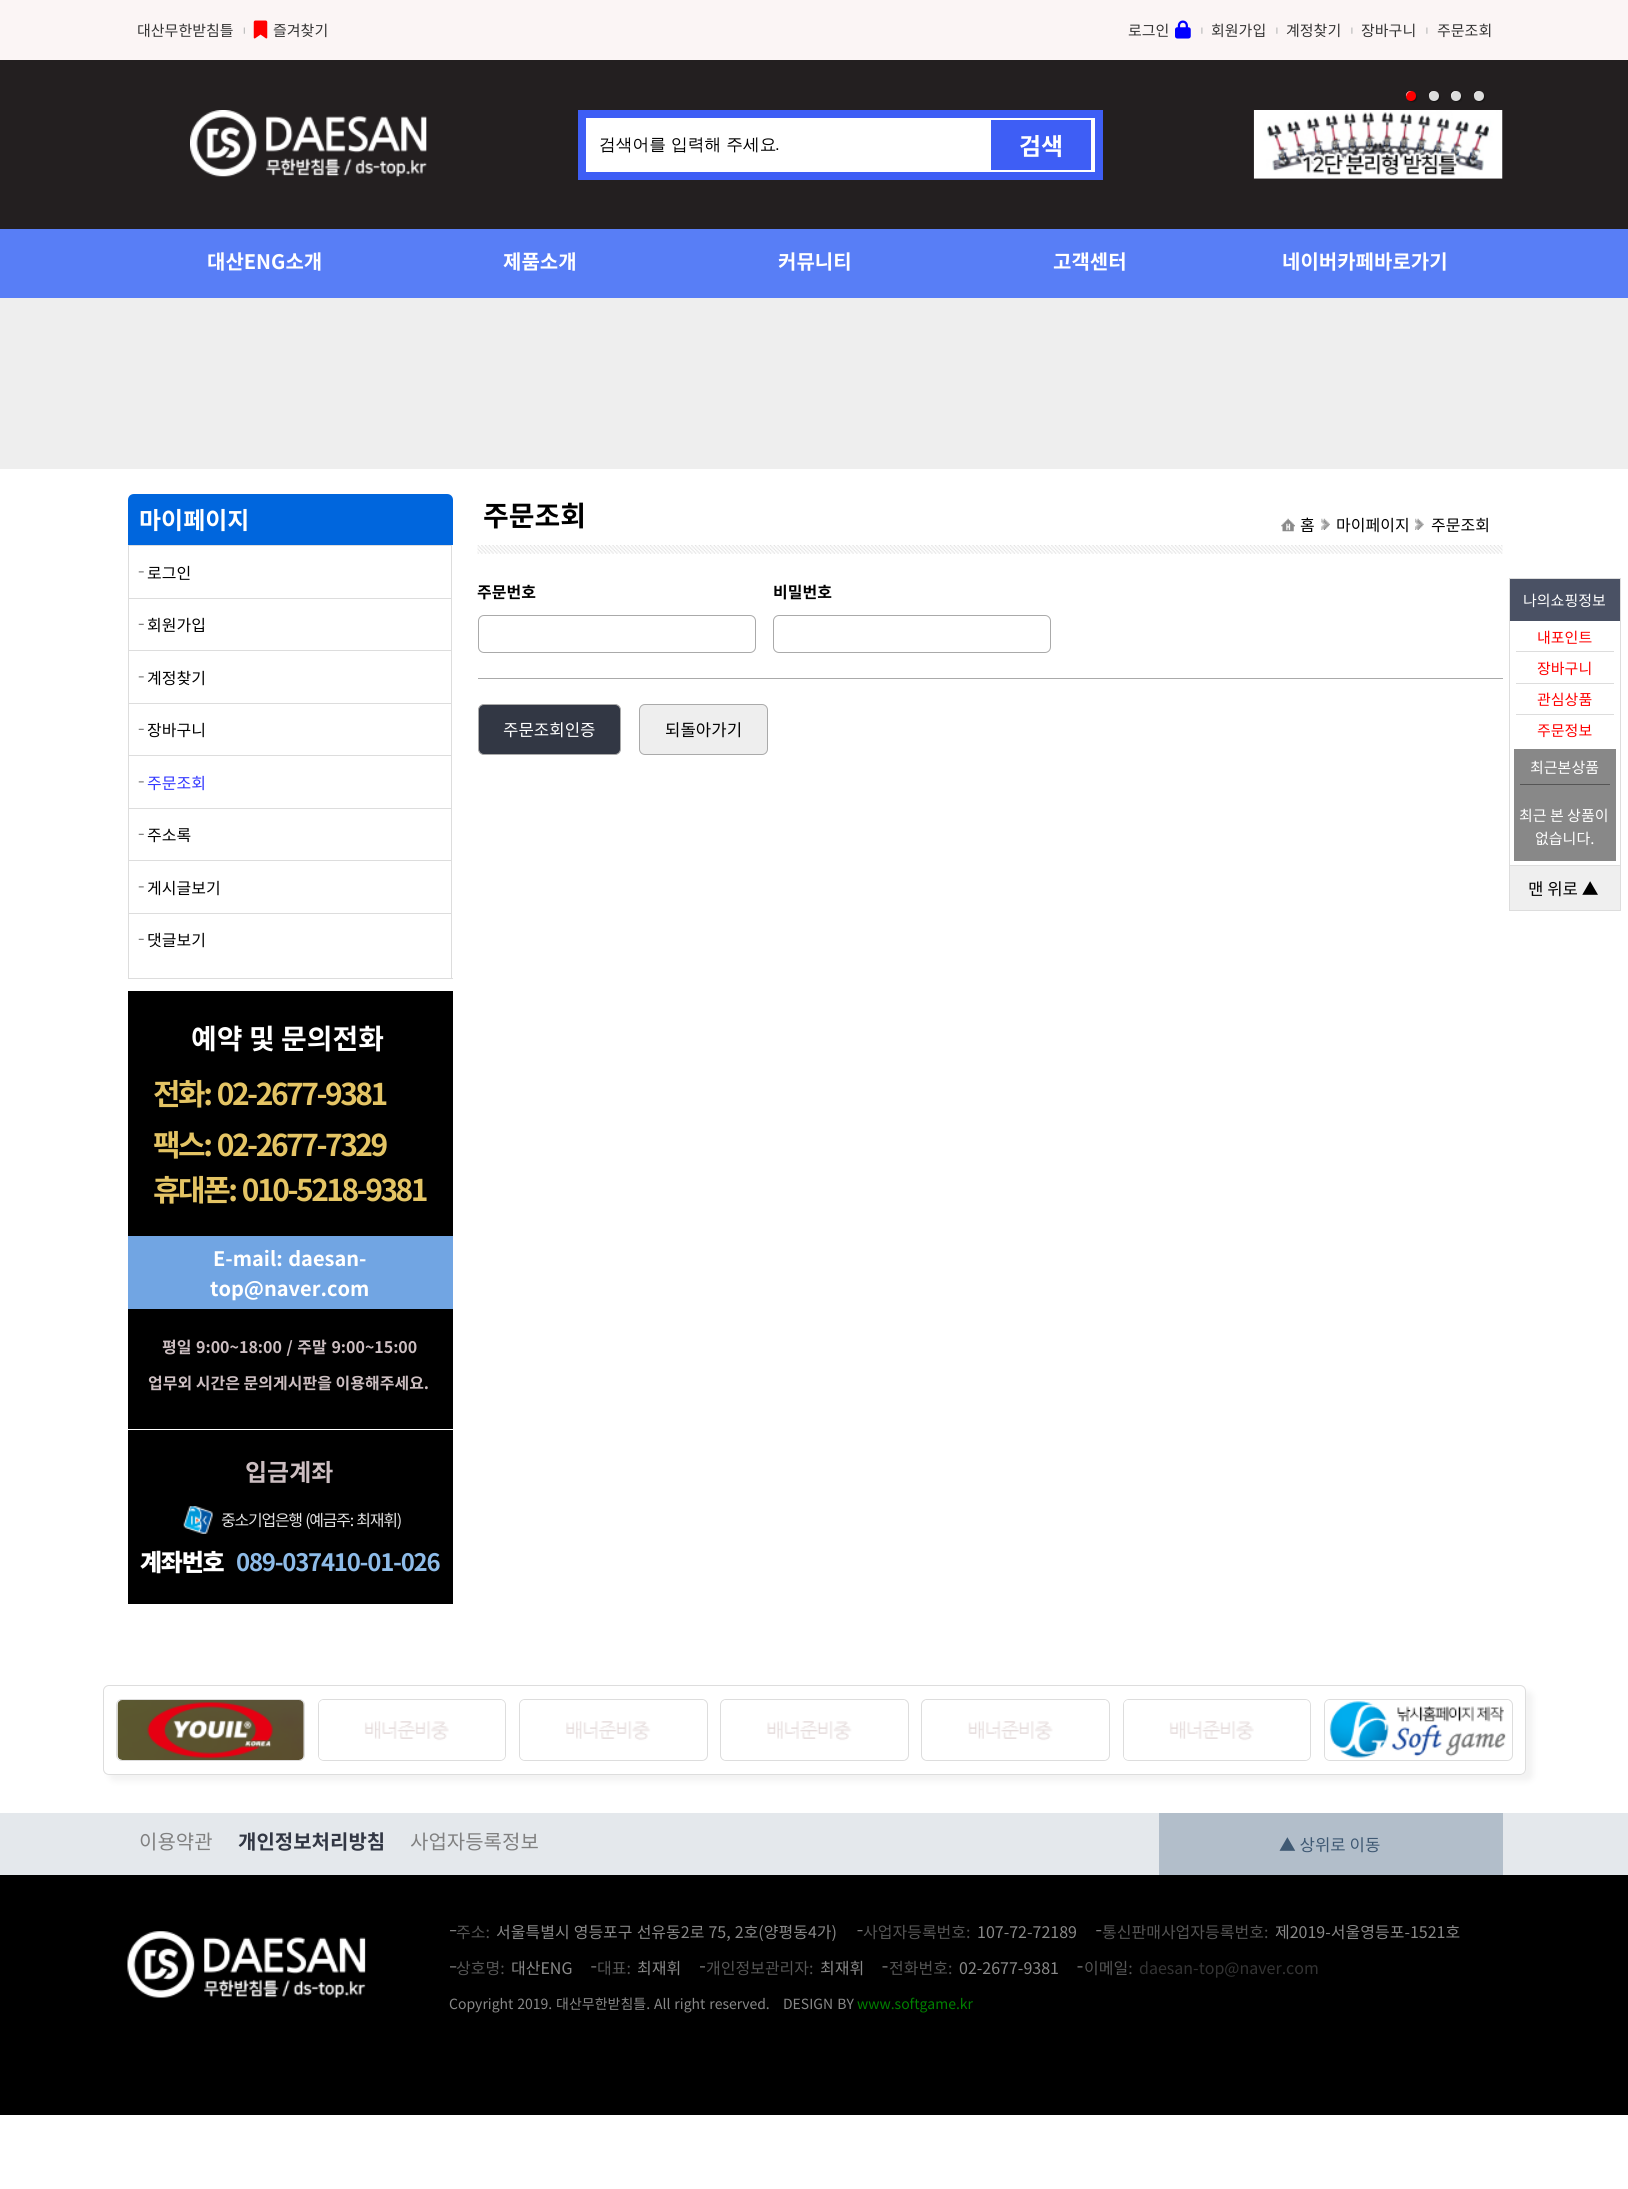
#include <cairo.h>
#include <math.h>
#include <stddef.h>


static void rgb(cairo_t *cr, int r, int g, int b)
{
	cairo_set_source_rgb(cr, r / 255.0, g / 255.0, b / 255.0);
}

static void face(cairo_t *cr, const char *family, double size, int italic, int bold)
{
	cairo_select_font_face(cr, family, italic ? CAIRO_FONT_SLANT_ITALIC : CAIRO_FONT_SLANT_NORMAL,
		bold ? CAIRO_FONT_WEIGHT_BOLD : CAIRO_FONT_WEIGHT_NORMAL);
	cairo_set_font_size(cr, size);
}

static void label(cairo_t *cr, double x, double y, const char *s)
{
	cairo_move_to(cr, x, y);
	cairo_show_text(cr, s);
}

static void tracked(cairo_t *cr, double x, double y, const char *s, double letter, double word)
{
	cairo_move_to(cr, x, y);
	while (*s) {
		char ch[5] = {0};
		int n = 0;
		do ch[n++] = *s++; while ((*s & 0xC0) == 0x80);
		cairo_show_text(cr, ch);
		cairo_rel_move_to(cr, letter + word * (*ch == ' '), 0);
	}
}

static void rect(cairo_t *cr, double x, double y, double w, double h)
{
	cairo_rectangle(cr, x, y, w, h);
	cairo_fill(cr);
}

static void rrect(cairo_t *cr, double x, double y, double w, double h, double r)
{
	cairo_new_sub_path(cr);
	cairo_arc(cr, x + w - r, y + h - r, r, 0, M_PI / 2);
	cairo_arc(cr, x + r, y + h - r, r, M_PI / 2, M_PI);
	cairo_arc(cr, x + r, y + r, r, M_PI, 1.5 * M_PI);
	cairo_arc(cr, x + w - r, y + r, r, 1.5 * M_PI, 2 * M_PI);
	cairo_close_path(cr);
}

static void soft_shadow(cairo_t *cr, double x, double y, double w, double h, double r, double blur, double alpha)
{
	cairo_push_group_with_content(cr, CAIRO_CONTENT_ALPHA);
	cairo_set_operator(cr, CAIRO_OPERATOR_SOURCE);
	for (int i = 15; i >= -15 && fmin(w, h) + blur * i / 3 > 0; i -= 2) {
		double e = blur * i / 6;
		cairo_set_source_rgba(cr, 0, 0, 0, alpha * erfc((i - 1) / 8.5) / 2);
		rrect(cr, x - e, y - e, w + 2 * e, h + 2 * e, fmax(0, fmin(r + e + blur * .6, fmin(w, h) / 2 + e)));
		cairo_fill(cr);
	}
	cairo_pattern_t *soft = cairo_pop_group(cr);
	cairo_mask(cr, soft);
	cairo_pattern_destroy(soft);
}

static void image(cairo_t *cr, const char *path, double x, double y, double w, double h)
{
	cairo_surface_t *image = cairo_image_surface_create_from_png(path);
	cairo_save(cr);
	cairo_set_source_surface(cr, image, x, y);
	cairo_rectangle(cr, x, y, w, h);
	cairo_fill(cr);
	cairo_restore(cr);
	cairo_surface_destroy(image);
}

static void draw(cairo_t *cr) {
	rgb(cr, 255, 255, 255);
	cairo_paint(cr);
	rgb(cr, 251, 245, 245);
	rect(cr, 0, 0, 1628, 60);
	face(cr, "Noto Sans KR", 15, 0, 0);
	rgb(cr, 51, 51, 51);
	label(cr, 137, 36, "대산무한받침틀");
	image(cr, "image0.png", 243, 27, 2, 7);
	image(cr, "image1.png", 253, 20, 15, 19);
	label(cr, 273, 36, "즐겨찾기");
	label(cr, 1128, 36, "로그인");
	image(cr, "image2.png", 1175, 20, 16, 19);
	image(cr, "image3.png", 1201, 27, 2, 7);
	label(cr, 1211, 36, "회원가입");
	image(cr, "image3.png", 1276, 27, 2, 7);
	label(cr, 1286, 36, "계정찾기");
	image(cr, "image3.png", 1351, 27, 2, 7);
	label(cr, 1361, 36, "장바구니");
	image(cr, "image3.png", 1426, 27, 2, 7);
	label(cr, 1437, 36, "주문조회");
	rgb(cr, 35, 31, 32);
	rect(cr, 0, 60, 1628, 169);
	image(cr, "image4.png", 190, 110, 237, 67);
	rgb(cr, 255, 255, 255);
	cairo_rectangle(cr, 582, 114, 517, 62);
	cairo_fill_preserve(cr);
	rgb(cr, 62, 94, 245);
	cairo_set_line_width(cr, 8);
	cairo_stroke(cr);
	face(cr, "WenQuanYi Zen Hei Medium", 16.75, 0, 0);
	rgb(cr, 0, 0, 0);
	label(cr, 599, 150, "검색어를 입력해 주세요");
	face(cr, "Liberation Sans", 16.75, 0, 0);
	label(cr, 775, 150, ".");
	rgb(cr, 62, 94, 245);
	rect(cr, 991, 120, 100, 50);
	face(cr, "Noto Sans KR", 24, 0, 1);
	rgb(cr, 255, 255, 255);
	label(cr, 1019, 155, "검색");
	rgb(cr, 0, 0, 0);
	soft_shadow(cr, 1409, 94, 7, 7, 3.5, 1, 1);
	rgb(cr, 255, 0, 0);
	cairo_arc(cr, 1411, 96, 5, 0, 2 * M_PI);
	cairo_fill(cr);
	rgb(cr, 255, 255, 255);
	cairo_new_path(cr);
	cairo_move_to(cr, 1411, 91);
	cairo_curve_to(cr, 1408, 91, 1405.5, 93.5, 1406, 96.5);
	cairo_curve_to(cr, 1406.5, 94, 1408, 91.5, 1411.5, 91);
	cairo_close_path(cr);
	cairo_fill(cr);
	rgb(cr, 0, 0, 0);
	soft_shadow(cr, 1431, 94, 8, 7, 3.5, 1, 1);
	rgb(cr, 221, 221, 221);
	cairo_arc(cr, 1434, 96, 5, 0, 2 * M_PI);
	cairo_fill(cr);
	rgb(cr, 255, 255, 255);
	cairo_new_path(cr);
	cairo_move_to(cr, 1434, 91);
	cairo_curve_to(cr, 1431, 91, 1428.5, 93.5, 1429, 96.5);
	cairo_curve_to(cr, 1429.5, 94, 1431, 91.5, 1434.5, 91);
	cairo_close_path(cr);
	cairo_fill(cr);
	rgb(cr, 0, 0, 0);
	soft_shadow(cr, 1454, 94, 7, 7, 3.5, 1, 1);
	rgb(cr, 221, 221, 221);
	cairo_arc(cr, 1456, 96, 5, 0, 2 * M_PI);
	cairo_fill(cr);
	rgb(cr, 255, 255, 255);
	cairo_new_path(cr);
	cairo_move_to(cr, 1456, 91);
	cairo_curve_to(cr, 1452.5, 91, 1450, 94.5, 1451.5, 97.5);
	cairo_curve_to(cr, 1451, 94.5, 1453, 91.5, 1457, 91);
	cairo_close_path(cr);
	cairo_fill(cr);
	rgb(cr, 0, 0, 0);
	soft_shadow(cr, 1476, 94, 8, 7, 3.5, 1, 1);
	rgb(cr, 221, 221, 221);
	cairo_arc(cr, 1479, 96, 5, 0, 2 * M_PI);
	cairo_fill(cr);
	rgb(cr, 255, 255, 255);
	cairo_new_path(cr);
	cairo_move_to(cr, 1479, 91);
	cairo_curve_to(cr, 1476, 91, 1473.5, 93.5, 1474, 96.5);
	cairo_curve_to(cr, 1474.5, 94, 1476, 91.5, 1479.5, 91);
	cairo_close_path(cr);
	cairo_fill(cr);
	image(cr, "image5.png", 1253, 110, 250, 69);
	rgb(cr, 88, 126, 246);
	rect(cr, 0, 229, 1628, 69);
	face(cr, "Noto Sans KR", 20, 0, 1);
	rgb(cr, 255, 255, 255);
	label(cr, 207, 269, "대산ENG소개");
	label(cr, 503, 269, "제품소개");
	label(cr, 778, 269, "커뮤니티");
	label(cr, 1053, 269, "고객센터");
	label(cr, 1282, 269, "네이버카페바로가기");
	rgb(cr, 238, 238, 238);
	rect(cr, 0, 298, 1628, 171);
	image(cr, "image6.png", 477, 545, 1026, 9);
	face(cr, "Noto Sans KR", 28, 0, 1);
	rgb(cr, 0, 0, 0);
	label(cr, 483, 526, "주문조회");
	image(cr, "image7.png", 1281, 518, 14, 14);
	face(cr, "Noto Sans KR", 16, 0, 0);
	label(cr, 1300, 531, "홈");
	image(cr, "image8.png", 1321, 518, 9, 12);
	label(cr, 1336, 531, "마이페이지");
	image(cr, "image9.png", 1415, 518, 9, 12);
	label(cr, 1431, 531, "주문조회");
	rgb(cr, 0, 102, 221);
	cairo_new_path(cr);
	cairo_move_to(cr, 134, 494);
	cairo_line_to(cr, 447, 494);
	cairo_curve_to(cr, 450.5, 494, 453, 496.5, 453, 500);
	cairo_line_to(cr, 453, 545);
	cairo_line_to(cr, 128, 545);
	cairo_line_to(cr, 128, 500);
	cairo_curve_to(cr, 128, 496.5, 130.5, 494, 134, 494);
	cairo_close_path(cr);
	cairo_fill(cr);
	face(cr, "Noto Sans KR", 24, 0, 1);
	rgb(cr, 255, 255, 255);
	label(cr, 139, 529, "마이페이지");
	rgb(cr, 221, 221, 221);
	rect(cr, 451, 545, 1, 434);
	rect(cr, 128, 978, 325, 1);
	rect(cr, 128, 545, 1, 434);
	rect(cr, 129, 545, 322, 1);
	image(cr, "image10.png", 138, 571, 6, 2);
	face(cr, "Noto Sans KR", 16, 0, 0);
	rgb(cr, 0, 0, 0);
	label(cr, 147, 579, "로그인");
	rgb(cr, 221, 221, 221);
	rect(cr, 129, 598, 322, 1);
	image(cr, "image11.png", 138, 623, 6, 2);
	rgb(cr, 0, 0, 0);
	label(cr, 147, 631, "회원가입");
	rgb(cr, 221, 221, 221);
	rect(cr, 129, 650, 322, 1);
	image(cr, "image10.png", 138, 676, 6, 2);
	rgb(cr, 0, 0, 0);
	label(cr, 147, 684, "계정찾기");
	rgb(cr, 221, 221, 221);
	rect(cr, 129, 703, 322, 1);
	image(cr, "image11.png", 138, 728, 6, 2);
	rgb(cr, 0, 0, 0);
	label(cr, 147, 736, "장바구니");
	rgb(cr, 221, 221, 221);
	rect(cr, 129, 755, 322, 1);
	image(cr, "image10.png", 138, 781, 6, 2);
	rgb(cr, 50, 55, 255);
	label(cr, 147, 789, "주문조회");
	rgb(cr, 221, 221, 221);
	rect(cr, 129, 808, 322, 1);
	image(cr, "image11.png", 138, 833, 6, 2);
	rgb(cr, 0, 0, 0);
	label(cr, 147, 841, "주소록");
	rgb(cr, 221, 221, 221);
	rect(cr, 129, 860, 322, 1);
	image(cr, "image10.png", 138, 886, 6, 2);
	rgb(cr, 0, 0, 0);
	label(cr, 147, 894, "게시글보기");
	rgb(cr, 221, 221, 221);
	rect(cr, 129, 913, 322, 1);
	image(cr, "image11.png", 138, 938, 6, 2);
	rgb(cr, 0, 0, 0);
	label(cr, 147, 946, "댓글보기");
	rect(cr, 128, 991, 325, 613);
	rgb(cr, 255, 255, 255);
	rect(cr, 128, 1429, 325, 1);
	face(cr, "Noto Sans KR", 28, 0, 1);
	label(cr, 191, 1049, "예약 및 문의전화");
	face(cr, "Noto Sans KR", 30, 0, 1);
	rgb(cr, 228, 196, 100);
	tracked(cr, 153, 1105, "전화: 02-2677-9381", -2.5, 2);
	tracked(cr, 153, 1156, "팩스: 02-2677-7329", -2.5, 2);
	tracked(cr, 153, 1201, "휴대폰: 010-5218-9381", -2.5, 2);
	rgb(cr, 113, 165, 227);
	rect(cr, 128, 1236, 325, 73);
	face(cr, "Noto Sans KR", 20, 0, 1);
	rgb(cr, 255, 255, 255);
	tracked(cr, 213, 1266, "E-mail: daesan-", 0, 1);
	label(cr, 210, 1296, "top@naver.com");
	face(cr, "Noto Sans KR", 16, 0, 1);
	rgb(cr, 204, 190, 193);
	tracked(cr, 162, 1353, "평일 9:00~18:00 / 주말 9:00~15:00", 0, 1);
	label(cr, 148, 1389, "업무외 시간은 문의게시판을 이용해주세요.");
	face(cr, "Noto Sans KR", 24, 0, 1);
	label(cr, 245, 1481, "입금계좌");
	image(cr, "image12.png", 183, 1506, 30, 28);
	face(cr, "Noto Sans KR", 16, 0, 0);
	rgb(cr, 229, 229, 229);
	tracked(cr, 221, 1526, "중소기업은행 (예금주: 최재휘)", -1.25, 1);
	face(cr, "Noto Sans KR Black", 24, 0, 0);
	rgb(cr, 255, 255, 255);
	tracked(cr, 140, 1571, "계좌번호", -1.25, 0);
	face(cr, "Noto Sans KR", 24, 0, 1);
	rgb(cr, 141, 187, 232);
	tracked(cr, 236, 1571, "089-037410-01-026", -1.25, 0);
	face(cr, "Noto Sans KR", 16, 0, 1);
	rgb(cr, 0, 0, 0);
	label(cr, 477, 598, "주문번호");
	rrect(cr, 478.5, 615.5, 277, 37, 5.5);
	rgb(cr, 170, 170, 170);
	cairo_set_line_width(cr, 1);
	cairo_stroke(cr);
	rgb(cr, 0, 0, 0);
	label(cr, 773, 598, "비밀번호");
	rrect(cr, 773.5, 615.5, 277, 37, 5.5);
	rgb(cr, 170, 170, 170);
	cairo_stroke(cr);
	rect(cr, 478, 678, 1025, 1);
	rgb(cr, 50, 55, 68);
	rrect(cr, 478.5, 704.5, 142, 50, 5.5);
	cairo_fill_preserve(cr);
	rgb(cr, 170, 170, 170);
	cairo_stroke(cr);
	face(cr, "Noto Sans KR", 16.75, 0, 0);
	rgb(cr, 255, 255, 255);
	label(cr, 503, 736, "주문조회인증");
	rgb(cr, 238, 238, 238);
	rrect(cr, 639.5, 704.5, 128, 50, 5.5);
	cairo_fill_preserve(cr);
	rgb(cr, 170, 170, 170);
	cairo_stroke(cr);
	rgb(cr, 0, 0, 0);
	label(cr, 665, 736, "되돌아가기");
	cairo_rectangle(cr, 1509.5, 578.5, 111, 332);
	rgb(cr, 221, 221, 221);
	cairo_stroke(cr);
	rgb(cr, 74, 81, 100);
	rect(cr, 1510, 579, 110, 42);
	face(cr, "Noto Sans KR", 15, 0, 0);
	rgb(cr, 255, 255, 255);
	label(cr, 1523, 606, "나의쇼핑정보");
	rgb(cr, 221, 221, 221);
	rect(cr, 1516, 651, 98, 1);
	rgb(cr, 255, 0, 0);
	label(cr, 1537, 643, "내포인트");
	rgb(cr, 221, 221, 221);
	rect(cr, 1516, 683, 98, 1);
	rgb(cr, 255, 0, 0);
	label(cr, 1537, 674, "장바구니");
	rgb(cr, 221, 221, 221);
	rect(cr, 1516, 714, 98, 1);
	rgb(cr, 255, 0, 0);
	label(cr, 1537, 705, "관심상품");
	label(cr, 1537, 736, "주문정보");
	rgb(cr, 136, 136, 136);
	rect(cr, 1514, 749, 102, 112);
	rgb(cr, 85, 85, 85);
	rect(cr, 1520, 784, 90, 1);
	rgb(cr, 255, 255, 255);
	label(cr, 1530, 773, "최근본상품");
	label(cr, 1519, 821, "최근 본 상품이");
	label(cr, 1535, 844, "없습니다.");
	rgb(cr, 239, 239, 239);
	rect(cr, 1510, 866, 110, 44);
	rgb(cr, 221, 221, 221);
	rect(cr, 1510, 865, 110, 1);
	face(cr, "Noto Sans KR", 16.75, 0, 0);
	rgb(cr, 0, 0, 0);
	label(cr, 1528, 895, "맨 위로 ▲");
	cairo_save(cr);
	cairo_set_fill_rule(cr, CAIRO_FILL_RULE_EVEN_ODD);
	cairo_new_path(cr);
	cairo_move_to(cr, 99, 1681);
	cairo_line_to(cr, 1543, 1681);
	cairo_line_to(cr, 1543, 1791);
	cairo_line_to(cr, 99, 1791);
	cairo_close_path(cr);
	cairo_move_to(cr, 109, 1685);
	cairo_line_to(cr, 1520, 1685);
	cairo_curve_to(cr, 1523.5, 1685, 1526, 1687.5, 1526, 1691);
	cairo_line_to(cr, 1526, 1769);
	cairo_curve_to(cr, 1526, 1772.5, 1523.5, 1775, 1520, 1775);
	cairo_line_to(cr, 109, 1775);
	cairo_curve_to(cr, 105.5, 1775, 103, 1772.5, 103, 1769);
	cairo_line_to(cr, 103, 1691);
	cairo_curve_to(cr, 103, 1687.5, 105.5, 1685, 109, 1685);
	cairo_close_path(cr);
	cairo_clip(cr);
	rgb(cr, 230, 230, 230);
	soft_shadow(cr, 109, 1691, 1424, 90, 6, 3, 0.5);
	cairo_restore(cr);
	rrect(cr, 103.5, 1685.5, 1422, 89, 5.5);
	rgb(cr, 221, 221, 221);
	cairo_stroke(cr);
	rrect(cr, 116.5, 1699.5, 188, 61, 5.5);
	cairo_stroke(cr);
	image(cr, "image13.png", 117, 1700, 187, 60);
	rrect(cr, 318.5, 1699.5, 187, 61, 5.5);
	cairo_stroke(cr);
	image(cr, "image14.png", 319, 1700, 186, 60);
	rrect(cr, 519.5, 1699.5, 188, 61, 5.5);
	cairo_stroke(cr);
	image(cr, "image15.png", 520, 1700, 184, 60);
	rrect(cr, 720.5, 1699.5, 188, 61, 5.5);
	cairo_stroke(cr);
	image(cr, "image16.png", 722, 1700, 183, 60);
	rrect(cr, 921.5, 1699.5, 188, 61, 5.5);
	cairo_stroke(cr);
	image(cr, "image17.png", 925, 1700, 183, 60);
	rrect(cr, 1123.5, 1699.5, 187, 61, 5.5);
	cairo_stroke(cr);
	image(cr, "image18.png", 1124, 1700, 186, 60);
	rrect(cr, 1324.5, 1699.5, 188, 61, 5.5);
	cairo_stroke(cr);
	image(cr, "image19.png", 1325, 1700, 184, 60);
	rgb(cr, 0, 0, 0);
	rect(cr, 0, 1875, 1628, 240);
	rgb(cr, 228, 232, 236);
	rect(cr, 0, 1813, 1628, 62);
	face(cr, "Noto Sans KR", 20, 0, 0);
	rgb(cr, 128, 128, 128);
	label(cr, 139, 1849, "이용약관");
	face(cr, "Noto Sans KR", 20, 0, 1);
	rgb(cr, 50, 55, 68);
	label(cr, 238, 1849, "개인정보처리방침");
	face(cr, "Noto Sans KR", 20, 0, 0);
	rgb(cr, 128, 128, 128);
	label(cr, 410, 1849, "사업자등록정보");
	image(cr, "image20.png", 127, 1931, 239, 67);
	image(cr, "image21.png", 450, 1930, 7, 2);
	face(cr, "Noto Sans KR", 16, 0, 0);
	rgb(cr, 85, 85, 85);
	label(cr, 456, 1938, "주소:");
	rgb(cr, 136, 136, 136);
	tracked(cr, 496, 1938, "서울특별시 영등포구 선유동2로 75, 2호(양평동4가)", 0, 0.5);
	image(cr, "image22.png", 857, 1930, 6, 2);
	rgb(cr, 85, 85, 85);
	label(cr, 863, 1938, "사업자등록번호:");
	rgb(cr, 136, 136, 136);
	label(cr, 977, 1938, "107-72-72189");
	image(cr, "image23.png", 1096, 1930, 6, 2);
	rgb(cr, 85, 85, 85);
	label(cr, 1102, 1938, "통신판매사업자등록번호:");
	rgb(cr, 136, 136, 136);
	label(cr, 1275, 1938, "제2019-서울영등포-1521호");
	image(cr, "image24.png", 450, 1966, 7, 2);
	rgb(cr, 85, 85, 85);
	label(cr, 456, 1974, "상호명:");
	rgb(cr, 136, 136, 136);
	label(cr, 511, 1974, "대산ENG");
	image(cr, "image25.png", 591, 1966, 6, 2);
	rgb(cr, 85, 85, 85);
	label(cr, 597, 1974, "대표:");
	rgb(cr, 136, 136, 136);
	label(cr, 637, 1974, "최재휘");
	image(cr, "image26.png", 700, 1966, 5, 2);
	rgb(cr, 85, 85, 85);
	label(cr, 706, 1974, "개인정보관리자:");
	rgb(cr, 136, 136, 136);
	label(cr, 820, 1974, "최재휘");
	image(cr, "image27.png", 882, 1966, 6, 2);
	rgb(cr, 85, 85, 85);
	label(cr, 889, 1974, "전화번호:");
	rgb(cr, 136, 136, 136);
	label(cr, 959, 1974, "02-2677-9381");
	image(cr, "image27.png", 1077, 1966, 6, 2);
	rgb(cr, 85, 85, 85);
	label(cr, 1084, 1974, "이메일:");
	rgb(cr, 51, 51, 51);
	label(cr, 1139, 1974, "daesan-top@naver.com");
	face(cr, "Noto Sans KR", 14, 0, 0);
	rgb(cr, 136, 136, 136);
	tracked(cr, 449, 2009, "Copyright 2019. 대산무한받침틀. All right reserved.", 0, 0.75);
	tracked(cr, 783, 2009, "DESIGN BY", 0, 1);
	rgb(cr, 0, 128, 0);
	label(cr, 857, 2009, "www.softgame.kr");
	rgb(cr, 178, 190, 202);
	rect(cr, 1159, 1813, 344, 62);
	face(cr, "Noto Sans KR", 16.75, 0, 0);
	rgb(cr, 63, 89, 115);
	label(cr, 1279, 1851, "▲ 상위로 이동");
}

int main(void) {
	cairo_surface_t *surface = cairo_image_surface_create(CAIRO_FORMAT_RGB24, 1628, 2189);
	cairo_t *cr = cairo_create(surface);
	cairo_font_options_t *options = cairo_font_options_create();
	cairo_font_options_set_hint_metrics(options, CAIRO_HINT_METRICS_OFF);
	cairo_font_options_set_hint_style(options, CAIRO_HINT_STYLE_NONE);
	cairo_set_font_options(cr, options);
	cairo_set_miter_limit(cr, 4);
	draw(cr);
	cairo_surface_write_to_png(surface, "render.png");
	cairo_font_options_destroy(options);
	cairo_destroy(cr);
	cairo_surface_destroy(surface);
	return 0;
}
